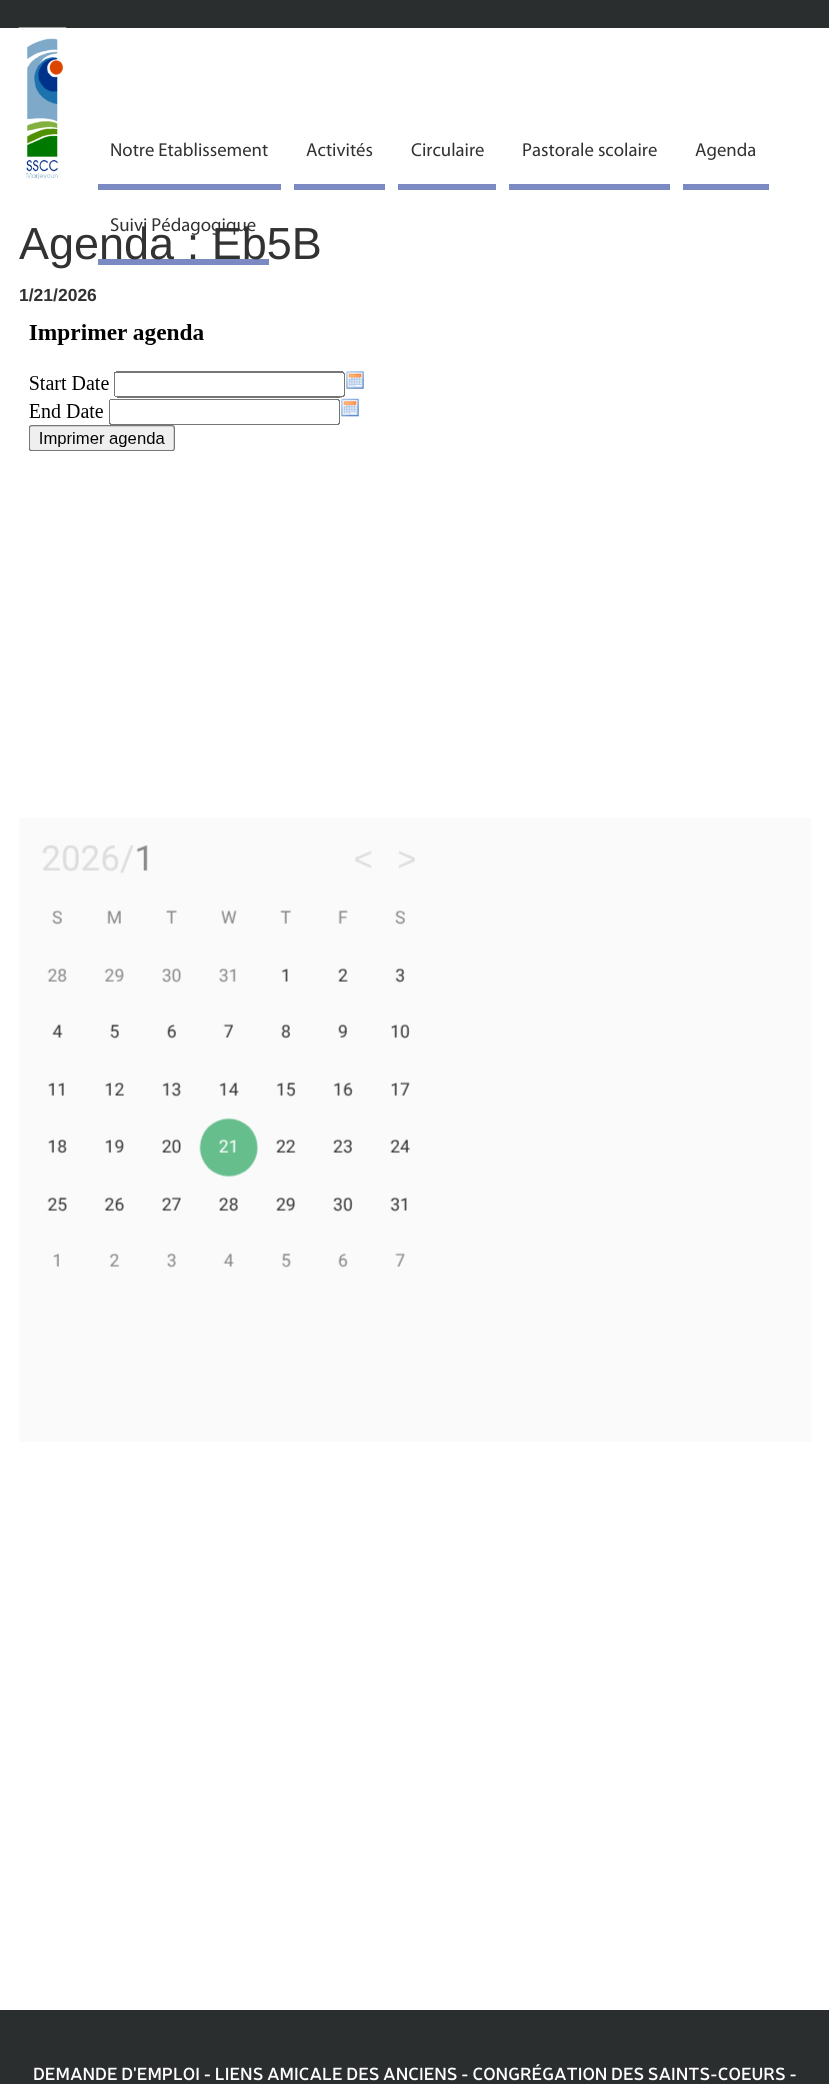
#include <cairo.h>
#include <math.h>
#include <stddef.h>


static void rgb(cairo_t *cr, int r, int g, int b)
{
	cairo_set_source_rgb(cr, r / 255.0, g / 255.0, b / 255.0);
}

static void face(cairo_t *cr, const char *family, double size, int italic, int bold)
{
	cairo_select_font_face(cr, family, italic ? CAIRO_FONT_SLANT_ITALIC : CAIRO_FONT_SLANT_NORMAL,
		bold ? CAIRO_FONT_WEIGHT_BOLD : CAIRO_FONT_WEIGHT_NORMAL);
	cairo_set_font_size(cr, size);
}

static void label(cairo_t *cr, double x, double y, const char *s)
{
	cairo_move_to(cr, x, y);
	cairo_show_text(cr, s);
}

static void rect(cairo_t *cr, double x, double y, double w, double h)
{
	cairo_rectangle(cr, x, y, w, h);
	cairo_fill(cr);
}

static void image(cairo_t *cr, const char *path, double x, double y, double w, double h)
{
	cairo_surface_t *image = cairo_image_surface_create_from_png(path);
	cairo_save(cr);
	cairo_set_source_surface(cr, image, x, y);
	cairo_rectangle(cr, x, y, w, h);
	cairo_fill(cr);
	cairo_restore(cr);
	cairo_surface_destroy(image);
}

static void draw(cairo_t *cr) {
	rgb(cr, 255, 255, 255);
	cairo_paint(cr);
	rgb(cr, 43, 46, 47);
	rect(cr, 0, 0, 829, 28);
	image(cr, "image0.png", 18, 27, 49, 153);
	rgb(cr, 124, 138, 195);
	rect(cr, 98, 184, 183, 6);
	face(cr, "Myriad", 18.75, 0, 0);
	rgb(cr, 51, 50, 50);
	label(cr, 110, 156, "Notre Etablissement");
	rgb(cr, 124, 138, 195);
	rect(cr, 294, 184, 91, 6);
	rgb(cr, 51, 50, 50);
	label(cr, 306, 156, "Activités");
	rgb(cr, 124, 138, 195);
	rect(cr, 398, 184, 98, 6);
	rgb(cr, 51, 50, 50);
	label(cr, 411, 156, "Circulaire");
	rgb(cr, 124, 138, 195);
	rect(cr, 509, 184, 161, 6);
	rgb(cr, 51, 50, 50);
	label(cr, 522, 156, "Pastorale scolaire");
	rgb(cr, 124, 138, 195);
	rect(cr, 683, 184, 86, 6);
	rgb(cr, 51, 50, 50);
	label(cr, 695, 156, "Agenda");
	rgb(cr, 124, 138, 195);
	rect(cr, 98, 259, 171, 6);
	rgb(cr, 51, 50, 50);
	label(cr, 110, 231, "Suivi Pédagogique");
	face(cr, "Liberation Sans", 45, 0, 0);
	label(cr, 19, 259, "Agenda : Eb5B");
	face(cr, "Liberation Sans", 17.5, 0, 1);
	label(cr, 19, 301, "1/21/2026");
	image(cr, "image1.png", 29, 324, 335, 127);
	image(cr, "image2.png", 19, 818, 792, 624);
	rgb(cr, 43, 46, 47);
	rect(cr, 0, 2010, 829, 74);
	face(cr, "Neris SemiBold", 17.5, 0, 0);
	rgb(cr, 255, 255, 255);
	label(cr, 33, 2080, "DEMANDE D'EMPLOI - LIENS AMICALE DES ANCIENS - CONGRÉGATION DES SAINTS-COEURS -");
}

int main(void) {
	cairo_surface_t *surface = cairo_image_surface_create(CAIRO_FORMAT_RGB24, 829, 2084);
	cairo_t *cr = cairo_create(surface);
	cairo_font_options_t *options = cairo_font_options_create();
	cairo_font_options_set_hint_metrics(options, CAIRO_HINT_METRICS_OFF);
	cairo_font_options_set_hint_style(options, CAIRO_HINT_STYLE_NONE);
	cairo_set_font_options(cr, options);
	cairo_set_miter_limit(cr, 4);
	draw(cr);
	cairo_surface_write_to_png(surface, "render.png");
	cairo_font_options_destroy(options);
	cairo_destroy(cr);
	cairo_surface_destroy(surface);
	return 0;
}
